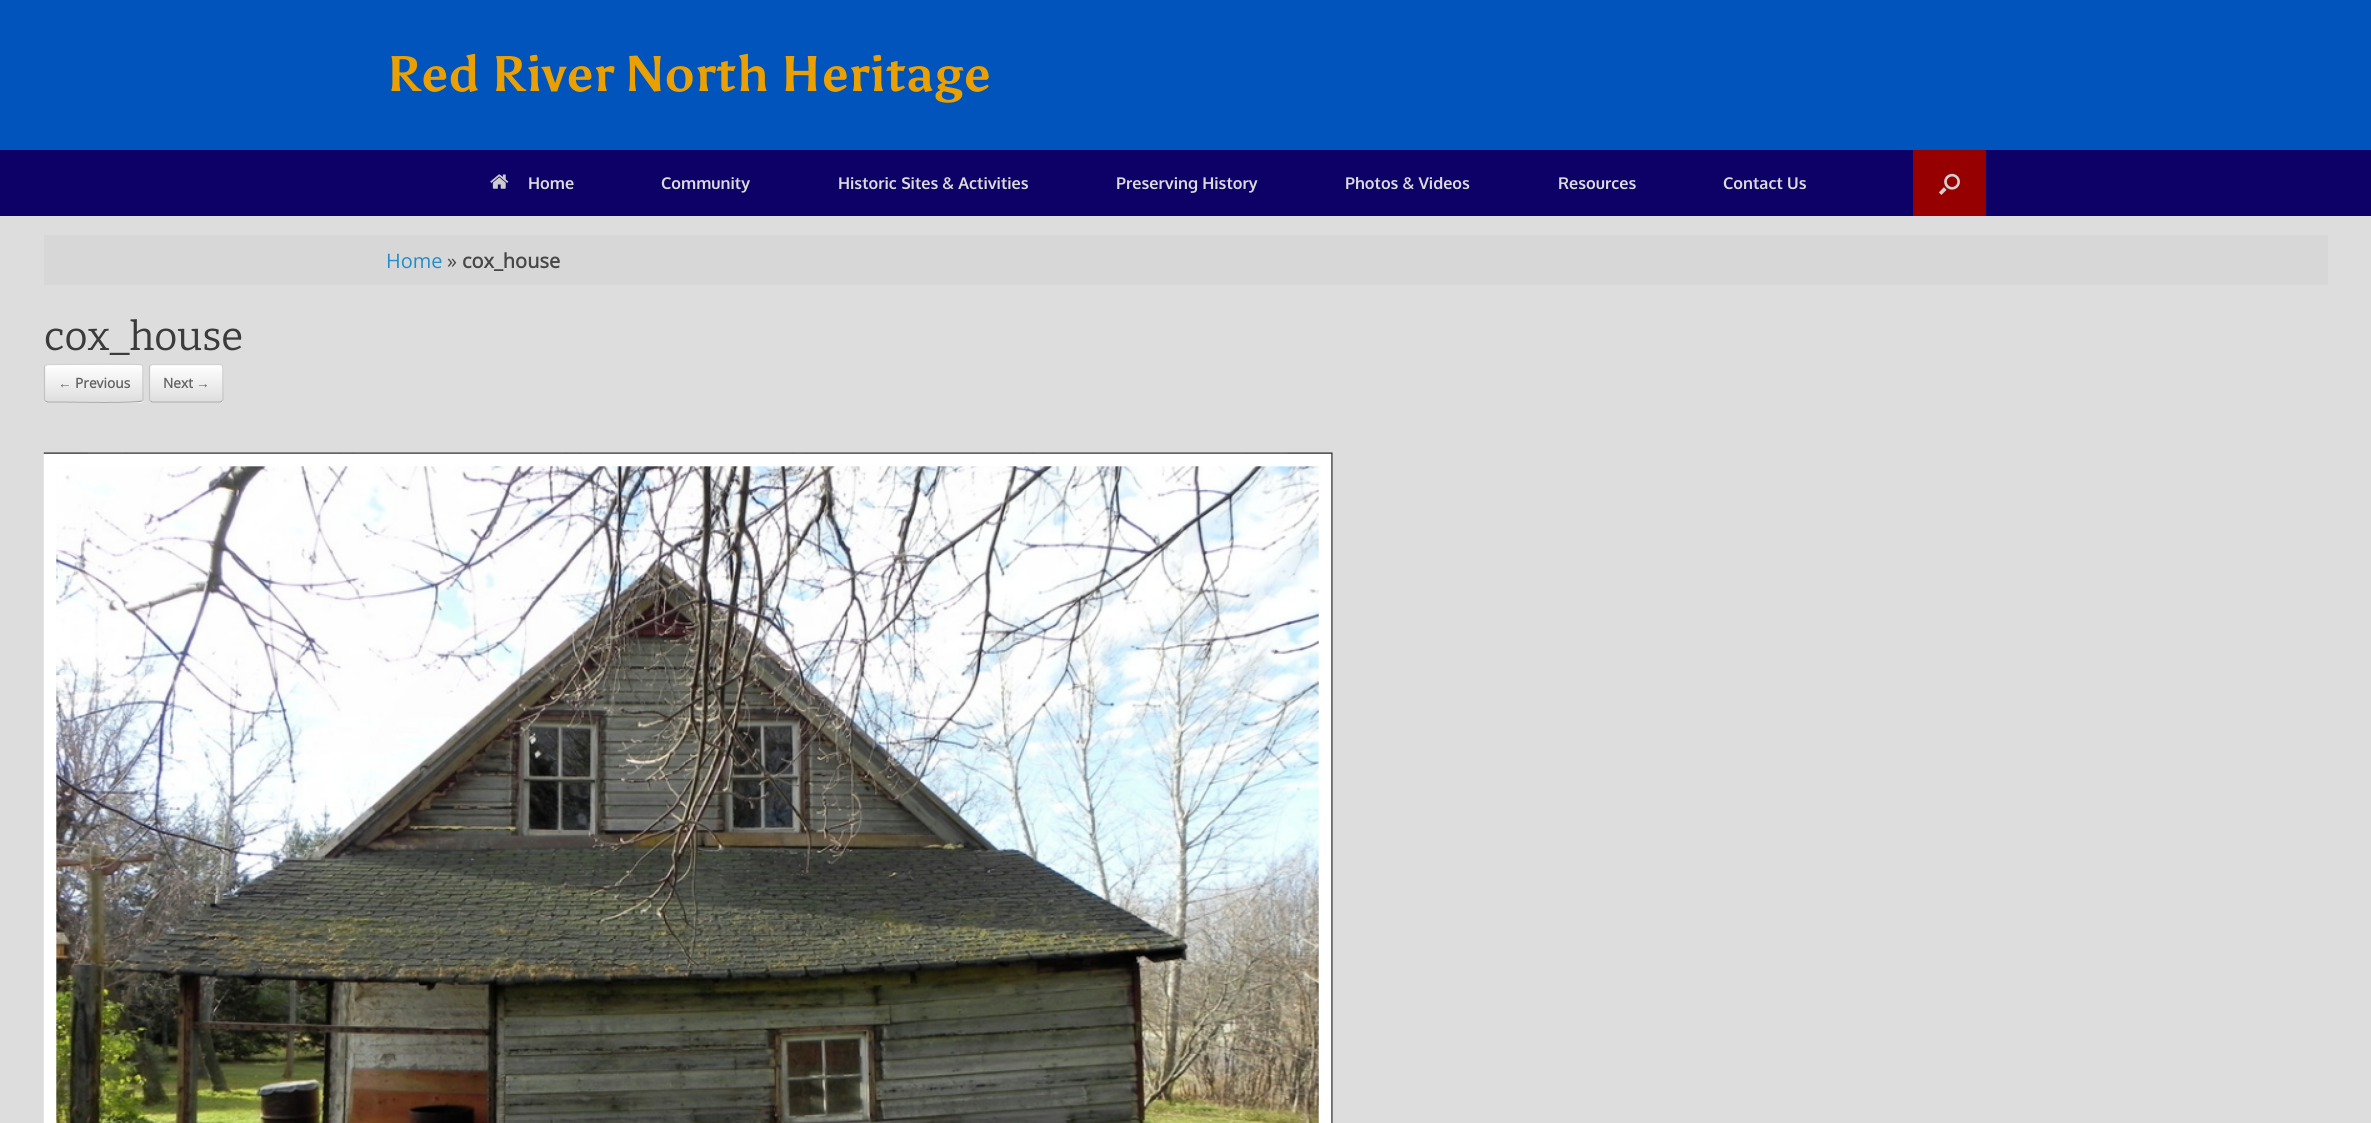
#include <cairo.h>
#include <math.h>
#include <stddef.h>


static void rgb(cairo_t *cr, int r, int g, int b)
{
	cairo_set_source_rgb(cr, r / 255.0, g / 255.0, b / 255.0);
}

static void face(cairo_t *cr, const char *family, double size, int italic, int bold)
{
	cairo_select_font_face(cr, family, italic ? CAIRO_FONT_SLANT_ITALIC : CAIRO_FONT_SLANT_NORMAL,
		bold ? CAIRO_FONT_WEIGHT_BOLD : CAIRO_FONT_WEIGHT_NORMAL);
	cairo_set_font_size(cr, size);
}

static void label(cairo_t *cr, double x, double y, const char *s)
{
	cairo_move_to(cr, x, y);
	cairo_show_text(cr, s);
}

static void rect(cairo_t *cr, double x, double y, double w, double h)
{
	cairo_rectangle(cr, x, y, w, h);
	cairo_fill(cr);
}

static void rrect(cairo_t *cr, double x, double y, double w, double h, double r)
{
	cairo_new_sub_path(cr);
	cairo_arc(cr, x + w - r, y + h - r, r, 0, M_PI / 2);
	cairo_arc(cr, x + r, y + h - r, r, M_PI / 2, M_PI);
	cairo_arc(cr, x + r, y + r, r, M_PI, 1.5 * M_PI);
	cairo_arc(cr, x + w - r, y + r, r, 1.5 * M_PI, 2 * M_PI);
	cairo_close_path(cr);
}

static void image(cairo_t *cr, const char *path, double x, double y, double w, double h)
{
	cairo_surface_t *image = cairo_image_surface_create_from_png(path);
	cairo_save(cr);
	cairo_set_source_surface(cr, image, x, y);
	cairo_rectangle(cr, x, y, w, h);
	cairo_fill(cr);
	cairo_restore(cr);
	cairo_surface_destroy(image);
}

static void draw(cairo_t *cr) {
	cairo_pattern_t *gradient;
	rgb(cr, 0, 84, 188);
	cairo_paint(cr);
	face(cr, "Asul", 50, 0, 1);
	rgb(cr, 234, 160, 0);
	label(cr, 386, 91, "Red River North Heritage");
	rgb(cr, 13, 0, 102);
	rect(cr, 0, 150, 2371, 66);
	image(cr, "image0.png", 490, 174, 19, 15);
	face(cr, "Oxygen", 16.25, 0, 1);
	rgb(cr, 219, 219, 219);
	label(cr, 528, 189, "Home");
	label(cr, 661, 189, "Community");
	label(cr, 838, 189, "Historic Sites & Activities");
	label(cr, 1116, 189, "Preserving History");
	label(cr, 1345, 189, "Photos & Videos");
	label(cr, 1558, 189, "Resources");
	label(cr, 1723, 189, "Contact Us");
	rgb(cr, 150, 0, 0);
	rect(cr, 1913, 150, 73, 66);
	image(cr, "image1.png", 1938, 173, 22, 22);
	rgb(cr, 221, 221, 221);
	rect(cr, 0, 216, 2371, 907);
	rgb(cr, 215, 215, 215);
	rect(cr, 44, 235, 2284, 50);
	face(cr, "Open Sans", 20, 0, 0);
	rgb(cr, 36, 140, 200);
	label(cr, 386, 268, "Home");
	rgb(cr, 71, 71, 71);
	label(cr, 447, 268, "»");
	face(cr, "Open Sans", 20, 0, 1);
	label(cr, 462, 268, "cox_house");
	face(cr, "Bitter Thin", 40, 0, 0);
	rgb(cr, 59, 59, 59);
	label(cr, 44, 350, "cox_house");
	cairo_save(cr);
	rrect(cr, 44, 364, 100, 39, 4);
	cairo_clip(cr);
	gradient = cairo_pattern_create_linear(45, 401, 45, 365);
	cairo_pattern_add_color_stop_rgba(gradient, 0, 0.875, 0.875, 0.875, 1);
	cairo_pattern_add_color_stop_rgba(gradient, 1, 1, 1, 1, 1);
	cairo_set_source(cr, gradient);
	cairo_pattern_destroy(gradient);
	rect(cr, 44, 365, 100, 36);
	gradient = cairo_pattern_create_linear(45, 438, 45, 401);
	cairo_pattern_add_color_stop_rgba(gradient, 0, 0.875, 0.875, 0.875, 1);
	cairo_pattern_add_color_stop_rgba(gradient, 1, 1, 1, 1, 1);
	cairo_set_source(cr, gradient);
	cairo_pattern_destroy(gradient);
	rect(cr, 44, 401, 100, 2);
	cairo_restore(cr);
	cairo_new_path(cr);
	cairo_move_to(cr, 45.5, 365.5);
	cairo_line_to(cr, 47.5, 364.5);
	cairo_line_to(cr, 63, 364.5);
	cairo_curve_to(cr, 71.5, 364.5, 140, 363.5, 142, 365);
	cairo_line_to(cr, 142, 365.5);
	rgb(cr, 210, 210, 210);
	cairo_set_line_width(cr, 1.2);
	cairo_stroke(cr);
	cairo_new_path(cr);
	cairo_move_to(cr, 142, 365.5);
	cairo_curve_to(cr, 143, 366, 143, 366.5, 143, 367.5);
	cairo_line_to(cr, 143, 399);
	cairo_curve_to(cr, 143, 399.5, 143, 400.5, 142, 401);
	rgb(cr, 195, 195, 195);
	cairo_stroke(cr);
	cairo_new_path(cr);
	cairo_move_to(cr, 142, 401);
	cairo_curve_to(cr, 140, 403, 71.5, 402, 63, 402);
	cairo_line_to(cr, 47.5, 402);
	cairo_line_to(cr, 45.5, 401);
	rgb(cr, 159, 159, 159);
	cairo_stroke(cr);
	cairo_new_path(cr);
	cairo_move_to(cr, 45.5, 401);
	cairo_curve_to(cr, 44.5, 400.5, 44.5, 399.5, 44.5, 399);
	cairo_line_to(cr, 44.5, 367.5);
	cairo_curve_to(cr, 44.5, 366.5, 44.5, 366, 45.5, 365.5);
	rgb(cr, 195, 195, 195);
	cairo_stroke(cr);
	face(cr, "Liberation Serif", 13.75, 0, 1);
	rgb(cr, 100, 100, 100);
	label(cr, 58, 388, "←");
	face(cr, "Open Sans", 13.75, 0, 1);
	label(cr, 75, 388, "Previous");
	cairo_save(cr);
	rrect(cr, 149, 364, 75, 39, 4);
	cairo_clip(cr);
	gradient = cairo_pattern_create_linear(150, 401, 150, 365);
	cairo_pattern_add_color_stop_rgba(gradient, 0, 0.875, 0.875, 0.875, 1);
	cairo_pattern_add_color_stop_rgba(gradient, 1, 1, 1, 1, 1);
	cairo_set_source(cr, gradient);
	cairo_pattern_destroy(gradient);
	rect(cr, 149, 365, 75, 36);
	gradient = cairo_pattern_create_linear(150, 438, 150, 401);
	cairo_pattern_add_color_stop_rgba(gradient, 0, 0.875, 0.875, 0.875, 1);
	cairo_pattern_add_color_stop_rgba(gradient, 1, 1, 1, 1, 1);
	cairo_set_source(cr, gradient);
	cairo_pattern_destroy(gradient);
	rect(cr, 149, 401, 75, 2);
	cairo_restore(cr);
	cairo_new_path(cr);
	cairo_move_to(cr, 150.5, 365.5);
	cairo_line_to(cr, 152, 364.5);
	cairo_line_to(cr, 220.5, 364.5);
	cairo_line_to(cr, 222, 365.5);
	rgb(cr, 210, 210, 210);
	cairo_stroke(cr);
	cairo_new_path(cr);
	cairo_move_to(cr, 222, 365.5);
	cairo_curve_to(cr, 223, 366, 223, 366.5, 223, 367.5);
	cairo_line_to(cr, 223, 399);
	cairo_curve_to(cr, 223, 399.5, 223, 400.5, 222, 401);
	rgb(cr, 195, 195, 195);
	cairo_stroke(cr);
	cairo_new_path(cr);
	cairo_move_to(cr, 222, 401);
	cairo_line_to(cr, 220.5, 402);
	cairo_line_to(cr, 152, 402);
	cairo_line_to(cr, 150.5, 401);
	rgb(cr, 159, 159, 159);
	cairo_stroke(cr);
	cairo_new_path(cr);
	cairo_move_to(cr, 150.5, 401);
	cairo_curve_to(cr, 149.5, 400.5, 149.5, 399.5, 149.5, 399);
	cairo_line_to(cr, 149.5, 367.5);
	cairo_curve_to(cr, 149.5, 366.5, 149.5, 366, 150.5, 365.5);
	rgb(cr, 195, 195, 195);
	cairo_stroke(cr);
	rgb(cr, 100, 100, 100);
	label(cr, 163, 388, "Next");
	face(cr, "Liberation Serif", 13.75, 0, 1);
	label(cr, 196, 388, "→");
	image(cr, "image2.png", 43, 452, 1290, 671);
}

int main(void) {
	cairo_surface_t *surface = cairo_image_surface_create(CAIRO_FORMAT_RGB24, 2371, 1123);
	cairo_t *cr = cairo_create(surface);
	cairo_font_options_t *options = cairo_font_options_create();
	cairo_font_options_set_hint_metrics(options, CAIRO_HINT_METRICS_OFF);
	cairo_font_options_set_hint_style(options, CAIRO_HINT_STYLE_NONE);
	cairo_set_font_options(cr, options);
	cairo_set_miter_limit(cr, 4);
	draw(cr);
	cairo_surface_write_to_png(surface, "render.png");
	cairo_font_options_destroy(options);
	cairo_destroy(cr);
	cairo_surface_destroy(surface);
	return 0;
}
